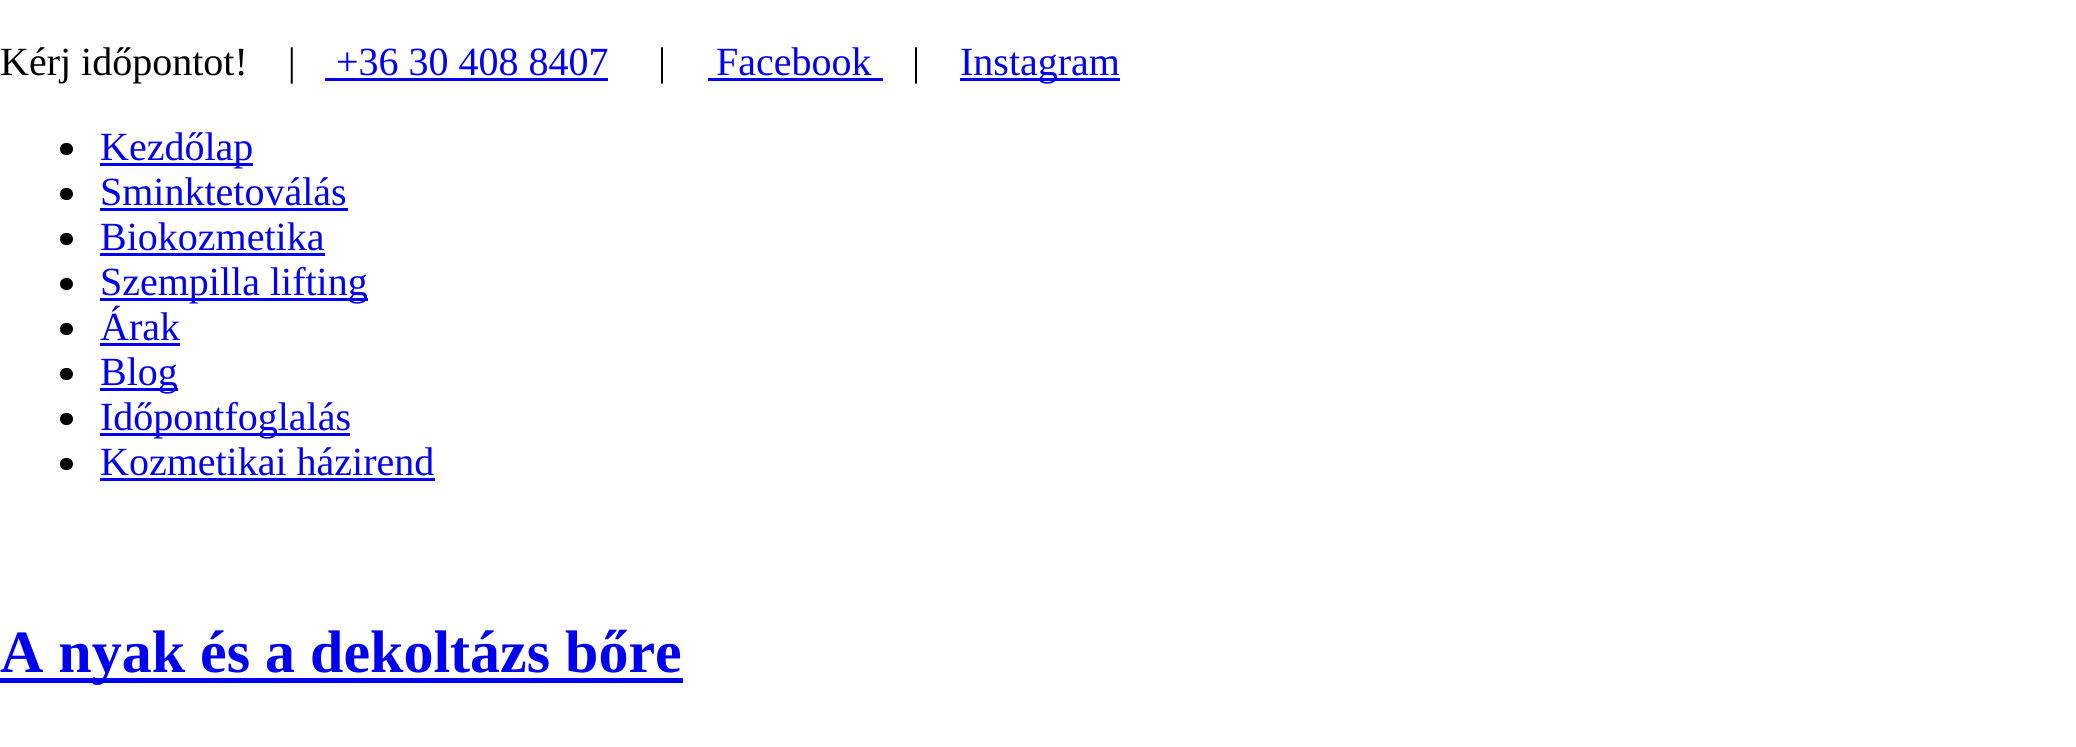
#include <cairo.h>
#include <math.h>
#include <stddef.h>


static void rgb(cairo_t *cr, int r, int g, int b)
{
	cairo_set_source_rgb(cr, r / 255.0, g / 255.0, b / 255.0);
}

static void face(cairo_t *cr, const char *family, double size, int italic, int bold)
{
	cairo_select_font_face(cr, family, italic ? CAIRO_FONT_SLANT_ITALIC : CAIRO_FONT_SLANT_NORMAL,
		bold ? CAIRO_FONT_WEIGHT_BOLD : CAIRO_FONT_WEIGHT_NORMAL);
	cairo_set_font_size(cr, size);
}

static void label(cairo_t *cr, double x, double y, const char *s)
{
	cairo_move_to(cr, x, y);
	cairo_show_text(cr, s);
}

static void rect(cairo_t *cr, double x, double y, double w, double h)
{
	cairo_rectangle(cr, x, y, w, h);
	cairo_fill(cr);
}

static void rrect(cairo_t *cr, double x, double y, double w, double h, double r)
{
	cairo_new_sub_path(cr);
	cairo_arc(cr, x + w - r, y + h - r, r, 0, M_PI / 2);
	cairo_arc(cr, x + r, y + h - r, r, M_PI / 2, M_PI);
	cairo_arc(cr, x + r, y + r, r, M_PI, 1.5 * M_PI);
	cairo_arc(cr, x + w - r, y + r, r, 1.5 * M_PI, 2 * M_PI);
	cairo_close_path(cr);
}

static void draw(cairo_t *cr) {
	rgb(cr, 255, 255, 255);
	cairo_paint(cr);
	face(cr, "Liberation Serif", 40, 0, 0);
	rgb(cr, 0, 0, 0);
	label(cr, 0, 75, "Kérj időpontot!    |");
	rgb(cr, 0, 0, 238);
	label(cr, 336, 75, "+36 30 408 8407");
	rect(cr, 325, 78, 283, 3);
	rgb(cr, 0, 0, 0);
	label(cr, 658, 75, "|");
	rgb(cr, 0, 0, 238);
	label(cr, 716, 75, "Facebook");
	rect(cr, 708, 78, 175, 3);
	rgb(cr, 0, 0, 0);
	label(cr, 912, 75, "|");
	rgb(cr, 0, 0, 238);
	rect(cr, 960, 78, 160, 3);
	label(cr, 960, 75, "Instagram");
	rgb(cr, 0, 0, 0);
	rrect(cr, 60, 143, 13, 12, 6);
	cairo_fill(cr);
	rgb(cr, 0, 0, 238);
	rect(cr, 100, 163, 153, 3);
	label(cr, 100, 160, "Kezdőlap");
	rgb(cr, 0, 0, 0);
	rrect(cr, 60, 188, 13, 12, 6);
	cairo_fill(cr);
	rgb(cr, 0, 0, 238);
	label(cr, 100, 205, "Sminktetoválás");
	rect(cr, 100, 208, 248, 3);
	rgb(cr, 0, 0, 0);
	rrect(cr, 60, 233, 13, 12, 6);
	cairo_fill(cr);
	rgb(cr, 0, 0, 238);
	label(cr, 100, 250, "Biokozmetika");
	rect(cr, 100, 253, 225, 3);
	rgb(cr, 0, 0, 0);
	rrect(cr, 60, 278, 13, 12, 6);
	cairo_fill(cr);
	rgb(cr, 0, 0, 238);
	rect(cr, 100, 298, 268, 3);
	label(cr, 100, 295, "Szempilla lifting");
	rgb(cr, 0, 0, 0);
	rrect(cr, 60, 323, 13, 12, 6);
	cairo_fill(cr);
	rgb(cr, 0, 0, 238);
	label(cr, 100, 340, "Árak");
	rect(cr, 100, 343, 80, 3);
	rgb(cr, 0, 0, 0);
	rrect(cr, 60, 368, 13, 12, 6);
	cairo_fill(cr);
	rgb(cr, 0, 0, 238);
	rect(cr, 100, 388, 78, 3);
	label(cr, 100, 385, "Blog");
	rgb(cr, 0, 0, 0);
	rrect(cr, 60, 413, 13, 12, 6);
	cairo_fill(cr);
	rgb(cr, 0, 0, 238);
	rect(cr, 100, 433, 250, 3);
	label(cr, 100, 430, "Időpontfoglalás");
	rgb(cr, 0, 0, 0);
	rrect(cr, 60, 458, 13, 12, 6);
	cairo_fill(cr);
	rgb(cr, 0, 0, 238);
	label(cr, 100, 475, "Kozmetikai házirend");
	rect(cr, 100, 478, 335, 3);
	rect(cr, 0, 678, 683, 5);
	face(cr, "Liberation Serif", 60, 0, 1);
	label(cr, 0, 672, "A nyak és a dekoltázs bőre");
}

int main(void) {
	cairo_surface_t *surface = cairo_image_surface_create(CAIRO_FORMAT_RGB24, 2076, 747);
	cairo_t *cr = cairo_create(surface);
	cairo_font_options_t *options = cairo_font_options_create();
	cairo_font_options_set_hint_metrics(options, CAIRO_HINT_METRICS_OFF);
	cairo_font_options_set_hint_style(options, CAIRO_HINT_STYLE_NONE);
	cairo_set_font_options(cr, options);
	cairo_set_miter_limit(cr, 4);
	draw(cr);
	cairo_surface_write_to_png(surface, "render.png");
	cairo_font_options_destroy(options);
	cairo_destroy(cr);
	cairo_surface_destroy(surface);
	return 0;
}
